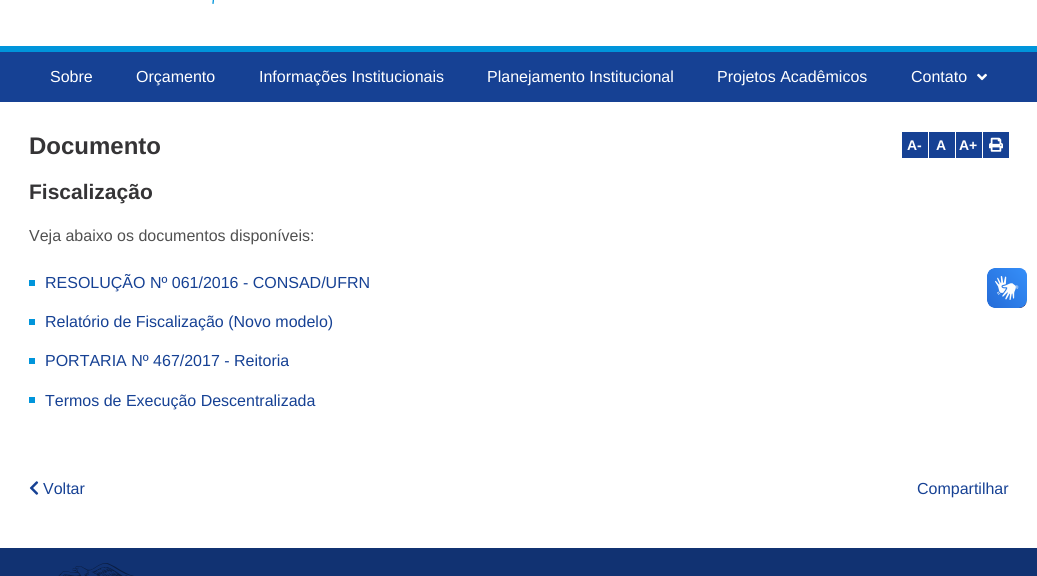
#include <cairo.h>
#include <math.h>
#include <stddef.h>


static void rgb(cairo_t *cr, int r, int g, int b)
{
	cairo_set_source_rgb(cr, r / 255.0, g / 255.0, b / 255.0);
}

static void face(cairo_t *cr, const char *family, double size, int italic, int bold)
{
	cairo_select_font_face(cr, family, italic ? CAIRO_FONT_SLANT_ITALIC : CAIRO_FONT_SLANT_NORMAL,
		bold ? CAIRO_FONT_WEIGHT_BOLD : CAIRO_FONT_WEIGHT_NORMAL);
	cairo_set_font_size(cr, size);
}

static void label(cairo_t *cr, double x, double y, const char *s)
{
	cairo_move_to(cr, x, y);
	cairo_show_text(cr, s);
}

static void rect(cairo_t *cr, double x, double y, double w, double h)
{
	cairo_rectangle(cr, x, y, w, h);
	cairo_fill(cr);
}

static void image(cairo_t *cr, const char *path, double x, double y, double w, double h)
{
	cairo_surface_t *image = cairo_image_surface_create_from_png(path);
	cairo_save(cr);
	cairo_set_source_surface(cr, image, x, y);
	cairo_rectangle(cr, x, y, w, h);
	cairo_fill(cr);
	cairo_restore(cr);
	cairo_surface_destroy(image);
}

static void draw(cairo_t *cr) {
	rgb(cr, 255, 255, 255);
	cairo_paint(cr);
	image(cr, "image0.png", 212, 0, 2, 4);
	rgb(cr, 22, 65, 148);
	rect(cr, 0, 52, 1037, 50);
	rgb(cr, 0, 149, 219);
	rect(cr, 0, 46, 1037, 6);
	face(cr, "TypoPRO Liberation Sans", 16, 0, 0);
	rgb(cr, 255, 255, 255);
	label(cr, 50, 82, "Sobre");
	label(cr, 136, 82, "Orçamento");
	label(cr, 259, 82, "Informações Institucionais");
	label(cr, 487, 82, "Planejamento Institucional");
	label(cr, 717, 82, "Projetos Acadêmicos");
	label(cr, 911, 82, "Contato");
	image(cr, "image1.png", 977, 73, 10, 8);
	face(cr, "TypoPRO Liberation Sans", 24, 0, 1);
	rgb(cr, 53, 52, 54);
	label(cr, 29, 154, "Documento");
	face(cr, "TypoPRO Liberation Sans", 21, 0, 1);
	label(cr, 29, 199, "Fiscalização");
	face(cr, "TypoPRO Liberation Sans", 16, 0, 0);
	rgb(cr, 80, 80, 80);
	label(cr, 29, 241, "Veja abaixo os documentos disponíveis:");
	rgb(cr, 0, 149, 219);
	rect(cr, 29, 280, 6, 6);
	rgb(cr, 22, 65, 148);
	label(cr, 45, 288, "RESOLUÇÃO Nº 061/2016 - CONSAD/UFRN");
	rgb(cr, 0, 149, 219);
	rect(cr, 29, 319, 6, 6);
	rgb(cr, 22, 65, 148);
	label(cr, 45, 327, "Relatório de Fiscalização (Novo modelo)");
	rgb(cr, 0, 149, 219);
	rect(cr, 29, 358, 6, 6);
	rgb(cr, 22, 65, 148);
	label(cr, 45, 366, "PORTARIA Nº 467/2017 - Reitoria");
	rgb(cr, 0, 149, 219);
	rect(cr, 29, 397, 6, 6);
	rgb(cr, 22, 65, 148);
	label(cr, 45, 406, "Termos de Execução Descentralizada");
	rect(cr, 902, 132, 26, 26);
	face(cr, "TypoPRO Liberation Sans", 14, 0, 1);
	rgb(cr, 255, 255, 255);
	label(cr, 907, 150, "A-");
	rgb(cr, 22, 65, 148);
	rect(cr, 929, 132, 26, 26);
	rgb(cr, 255, 255, 255);
	label(cr, 936, 150, "A");
	rgb(cr, 22, 65, 148);
	rect(cr, 956, 132, 26, 26);
	rgb(cr, 255, 255, 255);
	label(cr, 959, 150, "A+");
	rgb(cr, 22, 65, 148);
	rect(cr, 983, 132, 26, 26);
	image(cr, "image2.png", 989, 137, 14, 15);
	image(cr, "image3.png", 29, 481, 10, 14);
	face(cr, "TypoPRO Liberation Sans", 16, 0, 0);
	label(cr, 43, 494, "Voltar");
	label(cr, 917, 494, "Compartilhar");
	image(cr, "image4.png", 987, 268, 40, 40);
	image(cr, "image5.png", 987, 268, 40, 40);
	rgb(cr, 17, 50, 114);
	rect(cr, 0, 548, 1037, 28);
	image(cr, "image6.png", 58, 563, 76, 13);
}

int main(void) {
	cairo_surface_t *surface = cairo_image_surface_create(CAIRO_FORMAT_RGB24, 1037, 576);
	cairo_t *cr = cairo_create(surface);
	cairo_font_options_t *options = cairo_font_options_create();
	cairo_font_options_set_hint_metrics(options, CAIRO_HINT_METRICS_OFF);
	cairo_font_options_set_hint_style(options, CAIRO_HINT_STYLE_NONE);
	cairo_set_font_options(cr, options);
	cairo_set_miter_limit(cr, 4);
	draw(cr);
	cairo_surface_write_to_png(surface, "render.png");
	cairo_font_options_destroy(options);
	cairo_destroy(cr);
	cairo_surface_destroy(surface);
	return 0;
}
